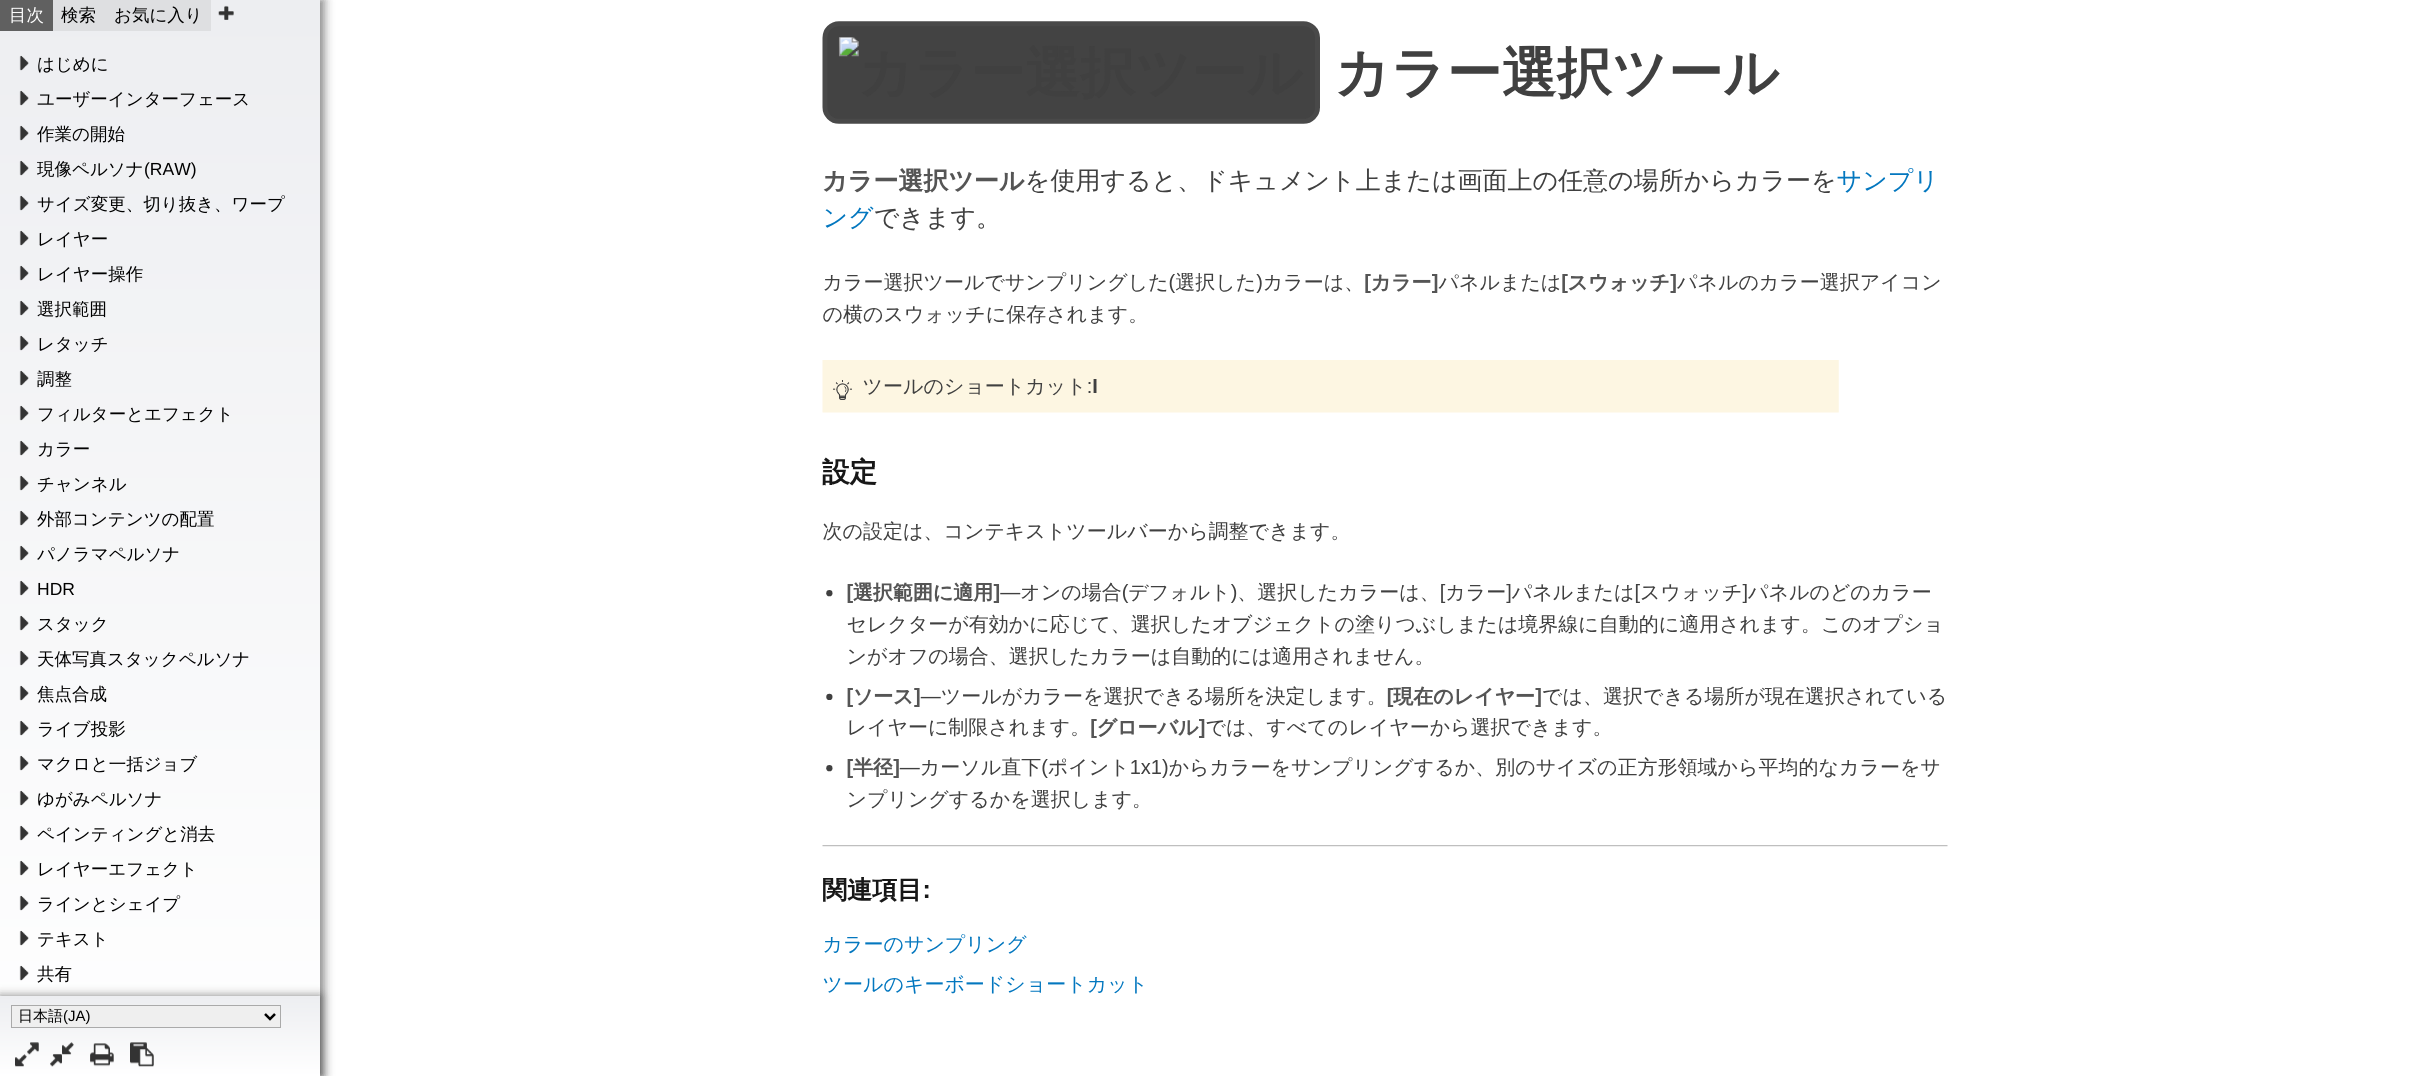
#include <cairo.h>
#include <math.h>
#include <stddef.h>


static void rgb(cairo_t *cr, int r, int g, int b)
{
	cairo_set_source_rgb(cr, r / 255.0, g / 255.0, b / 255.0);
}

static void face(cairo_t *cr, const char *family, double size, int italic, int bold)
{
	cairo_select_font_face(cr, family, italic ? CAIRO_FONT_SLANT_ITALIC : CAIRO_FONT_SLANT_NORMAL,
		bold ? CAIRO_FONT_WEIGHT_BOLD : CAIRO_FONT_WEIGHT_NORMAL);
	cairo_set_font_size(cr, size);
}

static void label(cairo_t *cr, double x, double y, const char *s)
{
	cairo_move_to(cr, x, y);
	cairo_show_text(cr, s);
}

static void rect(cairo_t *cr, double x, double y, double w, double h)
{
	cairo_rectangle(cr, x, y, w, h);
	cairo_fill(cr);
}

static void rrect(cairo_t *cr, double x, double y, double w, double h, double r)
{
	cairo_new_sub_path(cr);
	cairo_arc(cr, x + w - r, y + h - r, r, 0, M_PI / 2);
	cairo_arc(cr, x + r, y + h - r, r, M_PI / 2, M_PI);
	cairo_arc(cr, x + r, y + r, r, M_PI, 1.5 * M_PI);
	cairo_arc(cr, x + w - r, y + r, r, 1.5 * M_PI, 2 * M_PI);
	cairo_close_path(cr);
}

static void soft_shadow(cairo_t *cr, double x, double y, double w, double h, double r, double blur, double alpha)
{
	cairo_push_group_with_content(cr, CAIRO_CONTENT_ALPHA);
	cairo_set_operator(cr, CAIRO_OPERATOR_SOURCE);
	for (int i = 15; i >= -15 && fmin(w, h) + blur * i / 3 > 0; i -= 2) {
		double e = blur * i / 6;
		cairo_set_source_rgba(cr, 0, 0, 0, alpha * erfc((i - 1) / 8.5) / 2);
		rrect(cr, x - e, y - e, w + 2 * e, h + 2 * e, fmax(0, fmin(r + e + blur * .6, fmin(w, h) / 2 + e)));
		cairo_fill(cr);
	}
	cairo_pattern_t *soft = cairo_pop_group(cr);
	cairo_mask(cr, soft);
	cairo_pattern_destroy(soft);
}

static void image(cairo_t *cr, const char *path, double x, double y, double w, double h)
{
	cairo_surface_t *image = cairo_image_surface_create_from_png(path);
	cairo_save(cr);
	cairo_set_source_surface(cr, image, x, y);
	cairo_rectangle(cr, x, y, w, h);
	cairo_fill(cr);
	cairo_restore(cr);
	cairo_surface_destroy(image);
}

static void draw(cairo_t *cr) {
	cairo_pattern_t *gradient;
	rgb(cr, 255, 255, 255);
	cairo_paint(cr);
	rgb(cr, 0, 0, 0);
	soft_shadow(cr, 4, 0, 320, 1076, 0, 5, 0.49);
	gradient = cairo_pattern_create_linear(160, 0, 160, 1076);
	cairo_pattern_add_color_stop_rgba(gradient, 0, 0.929, 0.933, 0.945, 1);
	cairo_pattern_add_color_stop_rgba(gradient, 1, 1, 1, 1, 1);
	cairo_set_source(cr, gradient);
	cairo_pattern_destroy(gradient);
	rect(cr, 0, 0, 320, 996);
	rgb(cr, 222, 223, 225);
	rect(cr, 53, 0, 158, 31);
	face(cr, "WenQuanYi Zen Hei Medium", 17.5, 0, 0);
	rgb(cr, 0, 0, 0);
	label(cr, 61, 21, "検索");
	label(cr, 114, 21, "お気に入り");
	image(cr, "image0.png", 218, 5, 16, 15);
	rgb(cr, 96, 96, 96);
	rect(cr, 0, 0, 53, 31);
	rgb(cr, 255, 255, 255);
	label(cr, 9, 21, "目次");
	image(cr, "image1.png", 19, 55, 10, 16);
	rgb(cr, 0, 0, 0);
	label(cr, 37, 70, "はじめに");
	image(cr, "image2.png", 19, 90, 10, 16);
	label(cr, 37, 105, "ユーザーインターフェース");
	image(cr, "image3.png", 19, 125, 10, 16);
	label(cr, 37, 140, "作業の開始");
	image(cr, "image4.png", 19, 160, 10, 16);
	label(cr, 37, 175, "現像ペルソナ");
	face(cr, "Liberation Sans", 17.5, 0, 0);
	label(cr, 144, 175, "(RAW)");
	image(cr, "image5.png", 19, 195, 10, 16);
	face(cr, "WenQuanYi Zen Hei Medium", 17.5, 0, 0);
	label(cr, 37, 210, "サイズ変更、切り抜き、ワープ");
	image(cr, "image6.png", 19, 230, 10, 16);
	label(cr, 37, 245, "レイヤー");
	image(cr, "image7.png", 19, 265, 10, 16);
	label(cr, 37, 280, "レイヤー操作");
	image(cr, "image8.png", 19, 300, 10, 16);
	label(cr, 37, 315, "選択範囲");
	image(cr, "image9.png", 19, 335, 10, 16);
	label(cr, 37, 350, "レタッチ");
	image(cr, "image10.png", 19, 370, 10, 16);
	label(cr, 37, 385, "調整");
	image(cr, "image11.png", 19, 405, 10, 16);
	label(cr, 37, 420, "フィルターとエフェクト");
	image(cr, "image12.png", 19, 440, 10, 16);
	label(cr, 37, 455, "カラー");
	image(cr, "image13.png", 19, 475, 10, 16);
	label(cr, 37, 490, "チャンネル");
	image(cr, "image14.png", 19, 510, 10, 16);
	label(cr, 37, 525, "外部コンテンツの配置");
	image(cr, "image15.png", 19, 545, 10, 16);
	label(cr, 37, 560, "パノラマペルソナ");
	image(cr, "image16.png", 19, 580, 10, 16);
	face(cr, "Liberation Sans", 17.5, 0, 0);
	label(cr, 37, 595, "HDR");
	image(cr, "image17.png", 19, 615, 10, 16);
	face(cr, "WenQuanYi Zen Hei Medium", 17.5, 0, 0);
	label(cr, 37, 630, "スタック");
	image(cr, "image18.png", 19, 650, 10, 16);
	label(cr, 37, 665, "天体写真スタックペルソナ");
	image(cr, "image19.png", 19, 685, 10, 16);
	label(cr, 37, 700, "焦点合成");
	image(cr, "image20.png", 19, 720, 10, 16);
	label(cr, 37, 735, "ライブ投影");
	image(cr, "image21.png", 19, 755, 10, 16);
	label(cr, 37, 770, "マクロと一括ジョブ");
	image(cr, "image22.png", 19, 790, 10, 16);
	label(cr, 37, 805, "ゆがみペルソナ");
	image(cr, "image23.png", 19, 825, 10, 16);
	label(cr, 37, 840, "ペインティングと消去");
	image(cr, "image24.png", 19, 860, 10, 16);
	label(cr, 37, 875, "レイヤーエフェクト");
	image(cr, "image25.png", 19, 895, 10, 16);
	label(cr, 37, 910, "ラインとシェイプ");
	image(cr, "image26.png", 19, 930, 10, 16);
	label(cr, 37, 945, "テキスト");
	image(cr, "image27.png", 19, 965, 10, 16);
	label(cr, 37, 980, "共有");
	rgb(cr, 0, 0, 0);
	soft_shadow(cr, 0, 996, 320, 80, 0, 5, 0.49);
	gradient = cairo_pattern_create_linear(160, 996, 160, 1076);
	cairo_pattern_add_color_stop_rgba(gradient, 0, 0.929, 0.933, 0.945, 1);
	cairo_pattern_add_color_stop_rgba(gradient, 1, 1, 1, 1, 1);
	cairo_set_source(cr, gradient);
	cairo_pattern_destroy(gradient);
	rect(cr, 0, 996, 320, 80);
	rgb(cr, 239, 239, 239);
	cairo_rectangle(cr, 11.5, 1005.5, 269, 22);
	cairo_fill_preserve(cr);
	rgb(cr, 170, 170, 170);
	cairo_set_line_width(cr, 1);
	cairo_stroke(cr);
	cairo_new_path(cr);
	cairo_move_to(cr, 265, 1014);
	cairo_line_to(cr, 270, 1019);
	cairo_line_to(cr, 275, 1014);
	rgb(cr, 0, 0, 0);
	cairo_set_line_width(cr, 2.5);
	cairo_stroke(cr);
	face(cr, "WenQuanYi Zen Hei Medium", 15, 0, 0);
	label(cr, 18, 1021, "日本語");
	face(cr, "Liberation Sans", 15, 0, 0);
	label(cr, 63, 1021, "(JA)");
	image(cr, "image28.png", 15, 1042, 24, 25);
	image(cr, "image29.png", 50, 1042, 24, 25);
	image(cr, "image30.png", 90, 1043, 24, 24);
	image(cr, "image31.png", 130, 1042, 24, 25);
	image(cr, "image32.png", 822, 21, 1126, 973);
}

int main(void) {
	cairo_surface_t *surface = cairo_image_surface_create(CAIRO_FORMAT_RGB24, 2430, 1076);
	cairo_t *cr = cairo_create(surface);
	cairo_font_options_t *options = cairo_font_options_create();
	cairo_font_options_set_hint_metrics(options, CAIRO_HINT_METRICS_OFF);
	cairo_font_options_set_hint_style(options, CAIRO_HINT_STYLE_NONE);
	cairo_set_font_options(cr, options);
	cairo_set_miter_limit(cr, 4);
	draw(cr);
	cairo_surface_write_to_png(surface, "render.png");
	cairo_font_options_destroy(options);
	cairo_destroy(cr);
	cairo_surface_destroy(surface);
	return 0;
}
